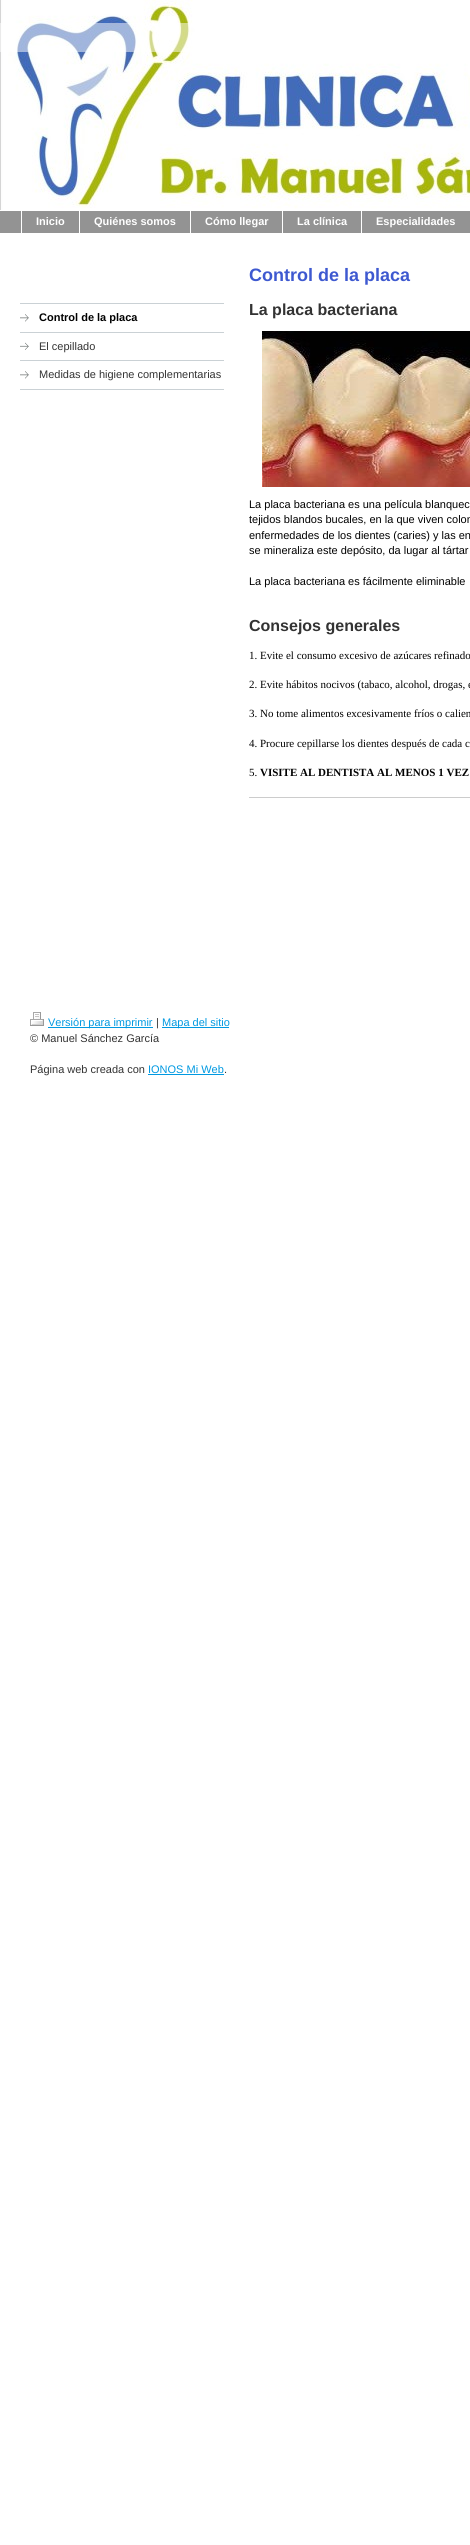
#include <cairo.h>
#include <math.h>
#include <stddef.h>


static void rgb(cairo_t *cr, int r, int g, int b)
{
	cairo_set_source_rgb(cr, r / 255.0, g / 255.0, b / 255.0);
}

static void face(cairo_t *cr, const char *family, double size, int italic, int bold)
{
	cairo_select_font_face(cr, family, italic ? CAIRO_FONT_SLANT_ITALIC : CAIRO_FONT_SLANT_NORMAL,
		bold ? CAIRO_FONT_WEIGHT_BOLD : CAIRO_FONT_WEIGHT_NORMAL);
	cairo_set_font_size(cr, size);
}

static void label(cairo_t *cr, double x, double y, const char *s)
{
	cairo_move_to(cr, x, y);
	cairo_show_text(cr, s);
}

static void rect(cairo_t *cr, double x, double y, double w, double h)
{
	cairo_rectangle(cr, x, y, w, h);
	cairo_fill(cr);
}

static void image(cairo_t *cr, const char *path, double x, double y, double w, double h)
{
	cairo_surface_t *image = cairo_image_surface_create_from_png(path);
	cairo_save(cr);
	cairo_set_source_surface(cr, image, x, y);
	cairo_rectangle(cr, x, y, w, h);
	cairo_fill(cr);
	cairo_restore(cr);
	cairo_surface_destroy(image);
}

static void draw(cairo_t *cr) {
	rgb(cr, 255, 255, 255);
	cairo_paint(cr);
	image(cr, "image0.png", 0, 0, 470, 210);
	cairo_set_source_rgba(cr, 1, 1, 1, 0.5);
	rect(cr, 0, 23, 192, 29);
	rgb(cr, 147, 147, 147);
	rect(cr, 0, 211, 21, 22);
	rect(cr, 22, 211, 57, 22);
	face(cr, "Liberation Sans", 11, 0, 1);
	rgb(cr, 255, 255, 255);
	label(cr, 36, 225, "Inicio");
	rgb(cr, 147, 147, 147);
	rect(cr, 80, 211, 110, 22);
	rgb(cr, 255, 255, 255);
	label(cr, 94, 225, "Quiénes somos");
	rgb(cr, 147, 147, 147);
	rect(cr, 191, 211, 91, 22);
	rgb(cr, 255, 255, 255);
	label(cr, 205, 225, "Cómo llegar");
	rgb(cr, 147, 147, 147);
	rect(cr, 283, 211, 78, 22);
	rgb(cr, 255, 255, 255);
	label(cr, 297, 225, "La clínica");
	rgb(cr, 147, 147, 147);
	rect(cr, 362, 211, 108, 22);
	rgb(cr, 255, 255, 255);
	label(cr, 376, 225, "Especialidades");
	rgb(cr, 202, 209, 213);
	rect(cr, 20, 303, 204, 1);
	image(cr, "image1.png", 20, 314, 9, 8);
	rect(cr, 20, 332, 204, 1);
	rgb(cr, 1, 1, 1);
	label(cr, 39, 321, "Control de la placa");
	image(cr, "image2.png", 20, 342, 9, 8);
	rgb(cr, 202, 209, 213);
	rect(cr, 20, 360, 204, 1);
	face(cr, "Liberation Sans", 11, 0, 0);
	rgb(cr, 51, 51, 51);
	label(cr, 39, 350, "El cepillado");
	image(cr, "image1.png", 20, 371, 9, 8);
	rgb(cr, 202, 209, 213);
	rect(cr, 20, 389, 204, 1);
	rgb(cr, 51, 51, 51);
	label(cr, 39, 378, "Medidas de higiene complementarias");
	face(cr, "Liberation Sans", 18, 0, 1);
	rgb(cr, 62, 89, 208);
	label(cr, 249, 281, "Control de la placa");
	face(cr, "Liberation Sans", 16, 0, 1);
	rgb(cr, 51, 51, 51);
	label(cr, 249, 315, "La placa bacteriana");
	image(cr, "image3.png", 262, 331, 208, 156);
	face(cr, "Liberation Sans", 11, 0, 0);
	rgb(cr, 1, 1, 1);
	label(cr, 249, 508, "La placa bacteriana es una película blanquec");
	label(cr, 249, 523, "tejidos blandos bucales, en la que viven colon");
	label(cr, 249, 539, "enfermedades de los dientes (caries) y las en");
	label(cr, 249, 554, "se mineraliza este depósito, da lugar al tártar");
	label(cr, 249, 585, "La placa bacteriana es fácilmente eliminable");
	face(cr, "Liberation Sans", 16, 0, 1);
	rgb(cr, 51, 51, 51);
	label(cr, 249, 631, "Consejos generales");
	face(cr, "Liberation Serif", 11, 0, 0);
	rgb(cr, 1, 1, 1);
	label(cr, 249, 659, "1. Evite el consumo excesivo de azúcares refinado");
	label(cr, 249, 688, "2. Evite hábitos nocivos (tabaco, alcohol, drogas, e");
	label(cr, 249, 717, "3. No tome alimentos excesivamente fríos o calien");
	label(cr, 249, 747, "4. Procure cepillarse los dientes después de cada c");
	label(cr, 249, 776, "5.");
	face(cr, "Liberation Serif", 11, 0, 1);
	label(cr, 260, 776, "VISITE AL DENTISTA AL MENOS 1 VEZ");
	rgb(cr, 204, 204, 204);
	rect(cr, 249, 797, 221, 1);
	image(cr, "image4.png", 30, 1012, 14, 14);
	rgb(cr, 0, 153, 225);
	rect(cr, 48, 1027, 105, 1);
	face(cr, "Liberation Sans", 11, 0, 0);
	label(cr, 48, 1026, "Versión para imprimir");
	rgb(cr, 51, 51, 51);
	label(cr, 156, 1026, "|");
	rgb(cr, 0, 153, 225);
	rect(cr, 162, 1027, 67, 1);
	label(cr, 162, 1026, "Mapa del sitio");
	rgb(cr, 51, 51, 51);
	label(cr, 30, 1042, "© Manuel Sánchez García");
	label(cr, 30, 1073, "Página web creada con");
	rgb(cr, 0, 153, 225);
	label(cr, 148, 1073, "IONOS Mi Web");
	rect(cr, 148, 1074, 76, 1);
	rgb(cr, 51, 51, 51);
	label(cr, 224, 1073, ".");
}

int main(void) {
	cairo_surface_t *surface = cairo_image_surface_create(CAIRO_FORMAT_RGB24, 470, 2545);
	cairo_t *cr = cairo_create(surface);
	cairo_font_options_t *options = cairo_font_options_create();
	cairo_font_options_set_hint_metrics(options, CAIRO_HINT_METRICS_OFF);
	cairo_font_options_set_hint_style(options, CAIRO_HINT_STYLE_NONE);
	cairo_set_font_options(cr, options);
	cairo_set_miter_limit(cr, 4);
	draw(cr);
	cairo_surface_write_to_png(surface, "render.png");
	cairo_font_options_destroy(options);
	cairo_destroy(cr);
	cairo_surface_destroy(surface);
	return 0;
}
